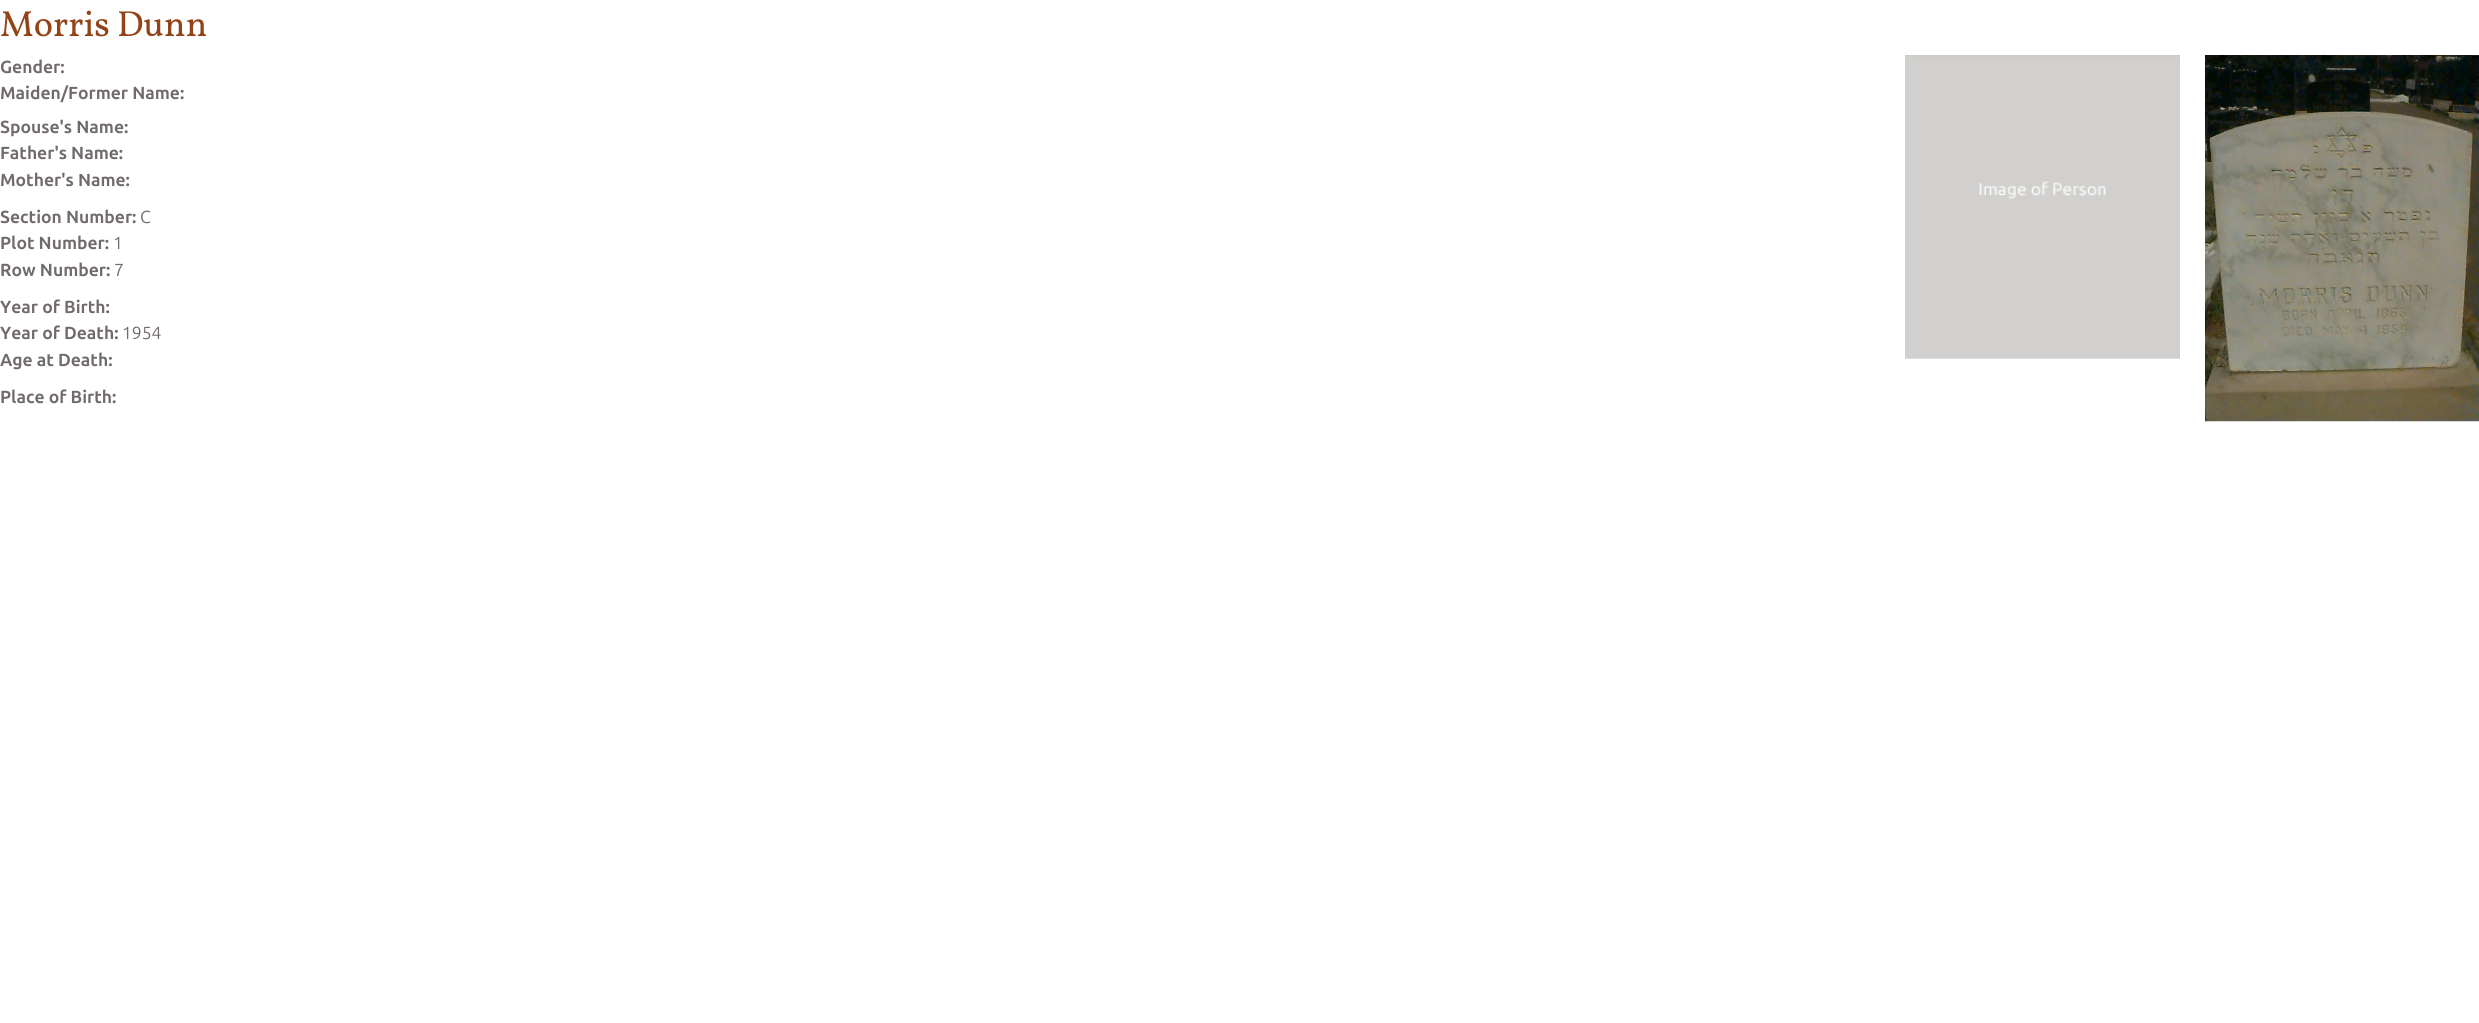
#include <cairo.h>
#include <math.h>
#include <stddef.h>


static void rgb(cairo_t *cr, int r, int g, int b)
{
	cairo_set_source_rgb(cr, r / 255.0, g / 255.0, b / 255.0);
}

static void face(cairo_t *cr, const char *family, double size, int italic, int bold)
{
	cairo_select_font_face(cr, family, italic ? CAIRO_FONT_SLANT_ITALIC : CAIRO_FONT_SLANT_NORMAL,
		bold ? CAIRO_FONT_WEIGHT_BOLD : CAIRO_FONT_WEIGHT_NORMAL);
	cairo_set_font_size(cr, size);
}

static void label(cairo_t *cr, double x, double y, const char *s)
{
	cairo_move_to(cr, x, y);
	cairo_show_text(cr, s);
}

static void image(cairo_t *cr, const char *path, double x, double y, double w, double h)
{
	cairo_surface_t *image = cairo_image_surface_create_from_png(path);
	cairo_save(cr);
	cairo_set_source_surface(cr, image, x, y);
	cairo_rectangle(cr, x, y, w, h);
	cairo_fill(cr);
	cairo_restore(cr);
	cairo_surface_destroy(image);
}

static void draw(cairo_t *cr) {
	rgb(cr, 255, 255, 255);
	cairo_paint(cr);
	face(cr, "Vollkorn", 36.25, 0, 0);
	rgb(cr, 146, 68, 24);
	label(cr, 0, 36, "Morris Dunn");
	face(cr, "Ubuntu", 17.5, 0, 1);
	rgb(cr, 112, 106, 106);
	label(cr, 0, 73, "Gender:");
	label(cr, 0, 99, "Maiden/Former Name:");
	label(cr, 0, 133, "Spouse's Name:");
	label(cr, 0, 159, "Father's Name:");
	label(cr, 0, 186, "Mother's Name:");
	label(cr, 0, 223, "Section Number:");
	face(cr, "Ubuntu", 17.5, 0, 0);
	label(cr, 140, 223, "C");
	face(cr, "Ubuntu", 17.5, 0, 1);
	label(cr, 0, 249, "Plot Number:");
	face(cr, "Ubuntu", 17.5, 0, 0);
	label(cr, 113, 249, "1");
	face(cr, "Ubuntu", 17.5, 0, 1);
	label(cr, 0, 276, "Row Number:");
	face(cr, "Ubuntu", 17.5, 0, 0);
	label(cr, 114, 276, "7");
	face(cr, "Ubuntu", 17.5, 0, 1);
	label(cr, 0, 313, "Year of Birth:");
	label(cr, 0, 339, "Year of Death:");
	face(cr, "Ubuntu", 17.5, 0, 0);
	label(cr, 122, 339, "1954");
	face(cr, "Ubuntu", 17.5, 0, 1);
	label(cr, 0, 366, "Age at Death:");
	label(cr, 0, 403, "Place of Birth:");
	image(cr, "image0.png", 1905, 55, 275, 304);
	image(cr, "image1.png", 2205, 55, 274, 367);
}

int main(void) {
	cairo_surface_t *surface = cairo_image_surface_create(CAIRO_FORMAT_RGB24, 2479, 1023);
	cairo_t *cr = cairo_create(surface);
	cairo_font_options_t *options = cairo_font_options_create();
	cairo_font_options_set_hint_metrics(options, CAIRO_HINT_METRICS_OFF);
	cairo_font_options_set_hint_style(options, CAIRO_HINT_STYLE_NONE);
	cairo_set_font_options(cr, options);
	cairo_set_miter_limit(cr, 4);
	draw(cr);
	cairo_surface_write_to_png(surface, "render.png");
	cairo_font_options_destroy(options);
	cairo_destroy(cr);
	cairo_surface_destroy(surface);
	return 0;
}
